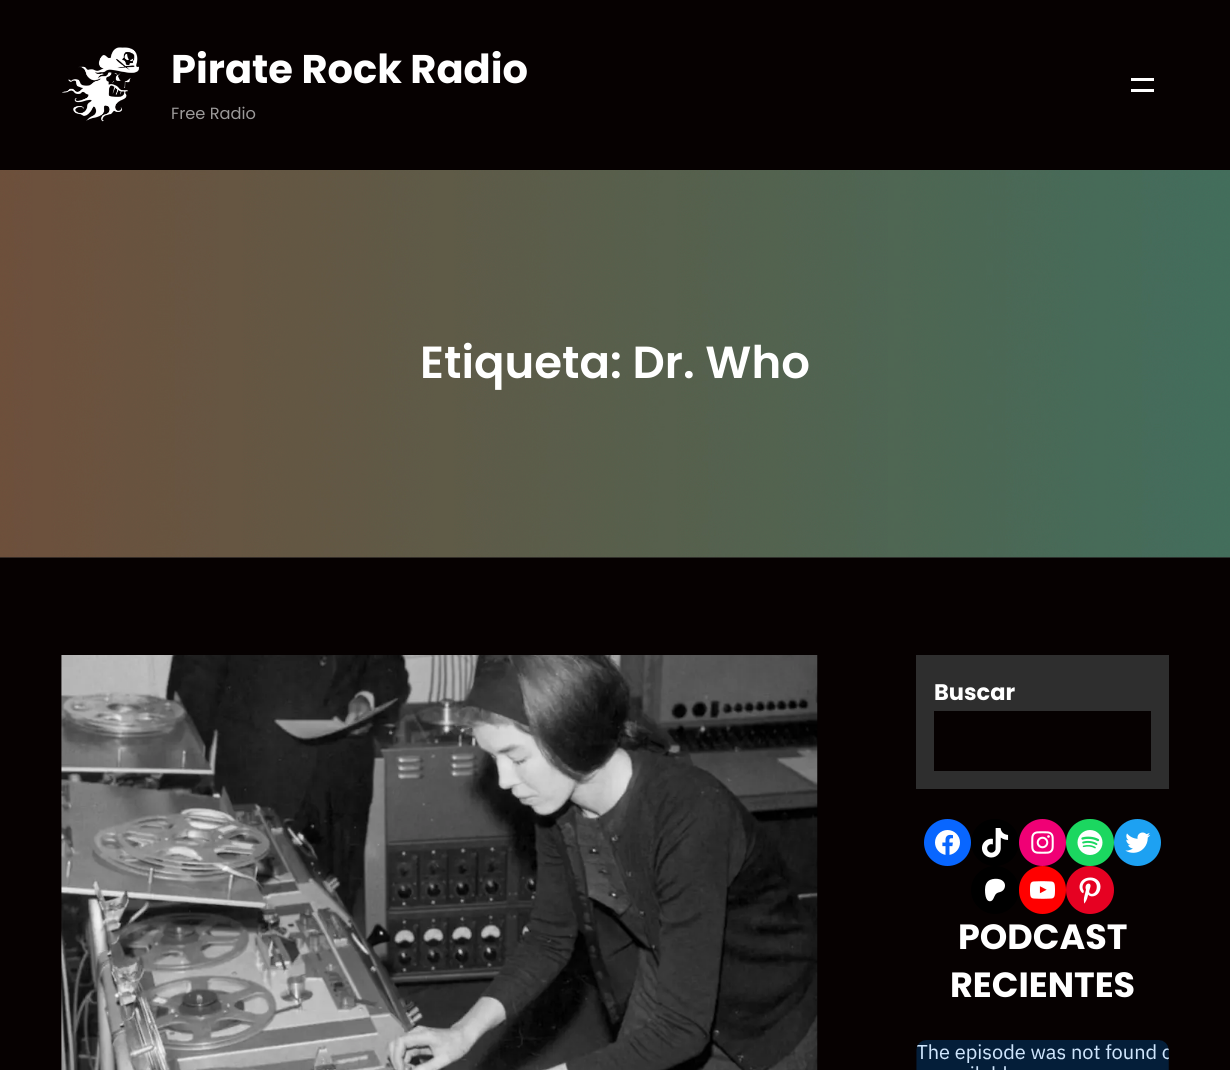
#include <cairo.h>
#include <math.h>
#include <stddef.h>


static void rgb(cairo_t *cr, int r, int g, int b)
{
	cairo_set_source_rgb(cr, r / 255.0, g / 255.0, b / 255.0);
}

static void face(cairo_t *cr, const char *family, double size, int italic, int bold)
{
	cairo_select_font_face(cr, family, italic ? CAIRO_FONT_SLANT_ITALIC : CAIRO_FONT_SLANT_NORMAL,
		bold ? CAIRO_FONT_WEIGHT_BOLD : CAIRO_FONT_WEIGHT_NORMAL);
	cairo_set_font_size(cr, size);
}

static void label(cairo_t *cr, double x, double y, const char *s)
{
	cairo_move_to(cr, x, y);
	cairo_show_text(cr, s);
}

static void rect(cairo_t *cr, double x, double y, double w, double h)
{
	cairo_rectangle(cr, x, y, w, h);
	cairo_fill(cr);
}

static void rrect(cairo_t *cr, double x, double y, double w, double h, double r)
{
	cairo_new_sub_path(cr);
	cairo_arc(cr, x + w - r, y + h - r, r, 0, M_PI / 2);
	cairo_arc(cr, x + r, y + h - r, r, M_PI / 2, M_PI);
	cairo_arc(cr, x + r, y + r, r, M_PI, 1.5 * M_PI);
	cairo_arc(cr, x + w - r, y + r, r, 1.5 * M_PI, 2 * M_PI);
	cairo_close_path(cr);
}

static void image(cairo_t *cr, const char *path, double x, double y, double w, double h)
{
	cairo_surface_t *image = cairo_image_surface_create_from_png(path);
	cairo_save(cr);
	cairo_set_source_surface(cr, image, x, y);
	cairo_rectangle(cr, x, y, w, h);
	cairo_fill(cr);
	cairo_restore(cr);
	cairo_surface_destroy(image);
}

static void draw(cairo_t *cr) {
	rgb(cr, 6, 1, 1);
	cairo_paint(cr);
	rgb(cr, 35, 31, 31);
	rect(cr, 0, 557, 1230, 1);
	image(cr, "image0.png", 62, 47, 78, 75);
	face(cr, "Poppins", 40, 0, 1);
	rgb(cr, 255, 255, 255);
	label(cr, 171, 83, "Pirate Rock Radio");
	face(cr, "Poppins", 16.25, 0, 0);
	rgb(cr, 155, 153, 153);
	label(cr, 171, 119, "Free Radio");
	rgb(cr, 255, 255, 255);
	rect(cr, 1131, 78, 23, 3);
	rect(cr, 1131, 89, 23, 3);
	image(cr, "image1.png", 0, 170, 1230, 388);
	face(cr, "Poppins SemiBold", 45, 0, 0);
	label(cr, 420, 378, "Etiqueta: Dr. Who");
	image(cr, "image2.png", 61, 655, 757, 415);
	rgb(cr, 46, 46, 46);
	rect(cr, 916, 655, 253, 134);
	face(cr, "Poppins", 22.5, 0, 1);
	rgb(cr, 255, 255, 255);
	label(cr, 934, 700, "Buscar");
	rgb(cr, 6, 1, 1);
	rect(cr, 934, 711, 217, 60);
	rgb(cr, 8, 102, 255);
	cairo_new_path(cr);
	cairo_arc(cr, 947.5, 842.5, 23.5, 0, 2 * M_PI);
	cairo_fill(cr);
	image(cr, "image3.png", 935, 830, 25, 25);
	rgb(cr, 0, 0, 0);
	rrect(cr, 971, 819, 48, 47, 23.5);
	cairo_fill(cr);
	image(cr, "image4.png", 982, 828, 27, 30);
	rgb(cr, 240, 0, 117);
	cairo_arc(cr, 1042.5, 842.5, 23.5, 0, 2 * M_PI);
	cairo_fill(cr);
	image(cr, "image5.png", 1031, 831, 23, 23);
	rgb(cr, 27, 215, 96);
	rrect(cr, 1066, 819, 48, 47, 23.5);
	cairo_fill(cr);
	image(cr, "image6.png", 1077, 830, 26, 25);
	rgb(cr, 29, 161, 242);
	cairo_arc(cr, 1137.5, 842.5, 23.5, 0, 2 * M_PI);
	cairo_fill(cr);
	image(cr, "image7.png", 1125, 832, 26, 21);
	rgb(cr, 0, 0, 0);
	cairo_arc(cr, 995, 890, 24, 0, 2 * M_PI);
	cairo_fill(cr);
	image(cr, "image8.png", 985, 878, 20, 24);
	rgb(cr, 255, 0, 0);
	rrect(cr, 1019, 866, 47, 48, 23.5);
	cairo_fill(cr);
	image(cr, "image9.png", 1030, 881, 25, 18);
	rgb(cr, 230, 1, 34);
	cairo_arc(cr, 1090, 890, 24, 0, 2 * M_PI);
	cairo_fill(cr);
	image(cr, "image10.png", 1079, 877, 22, 27);
	face(cr, "Poppins", 35, 0, 1);
	rgb(cr, 255, 255, 255);
	label(cr, 958, 949, "PODCAST");
	label(cr, 950, 997, "RECIENTES");
	image(cr, "image11.png", 916, 1040, 253, 30);
}

int main(void) {
	cairo_surface_t *surface = cairo_image_surface_create(CAIRO_FORMAT_RGB24, 1230, 1070);
	cairo_t *cr = cairo_create(surface);
	cairo_font_options_t *options = cairo_font_options_create();
	cairo_font_options_set_hint_metrics(options, CAIRO_HINT_METRICS_OFF);
	cairo_font_options_set_hint_style(options, CAIRO_HINT_STYLE_NONE);
	cairo_set_font_options(cr, options);
	cairo_set_miter_limit(cr, 4);
	draw(cr);
	cairo_surface_write_to_png(surface, "render.png");
	cairo_font_options_destroy(options);
	cairo_destroy(cr);
	cairo_surface_destroy(surface);
	return 0;
}
